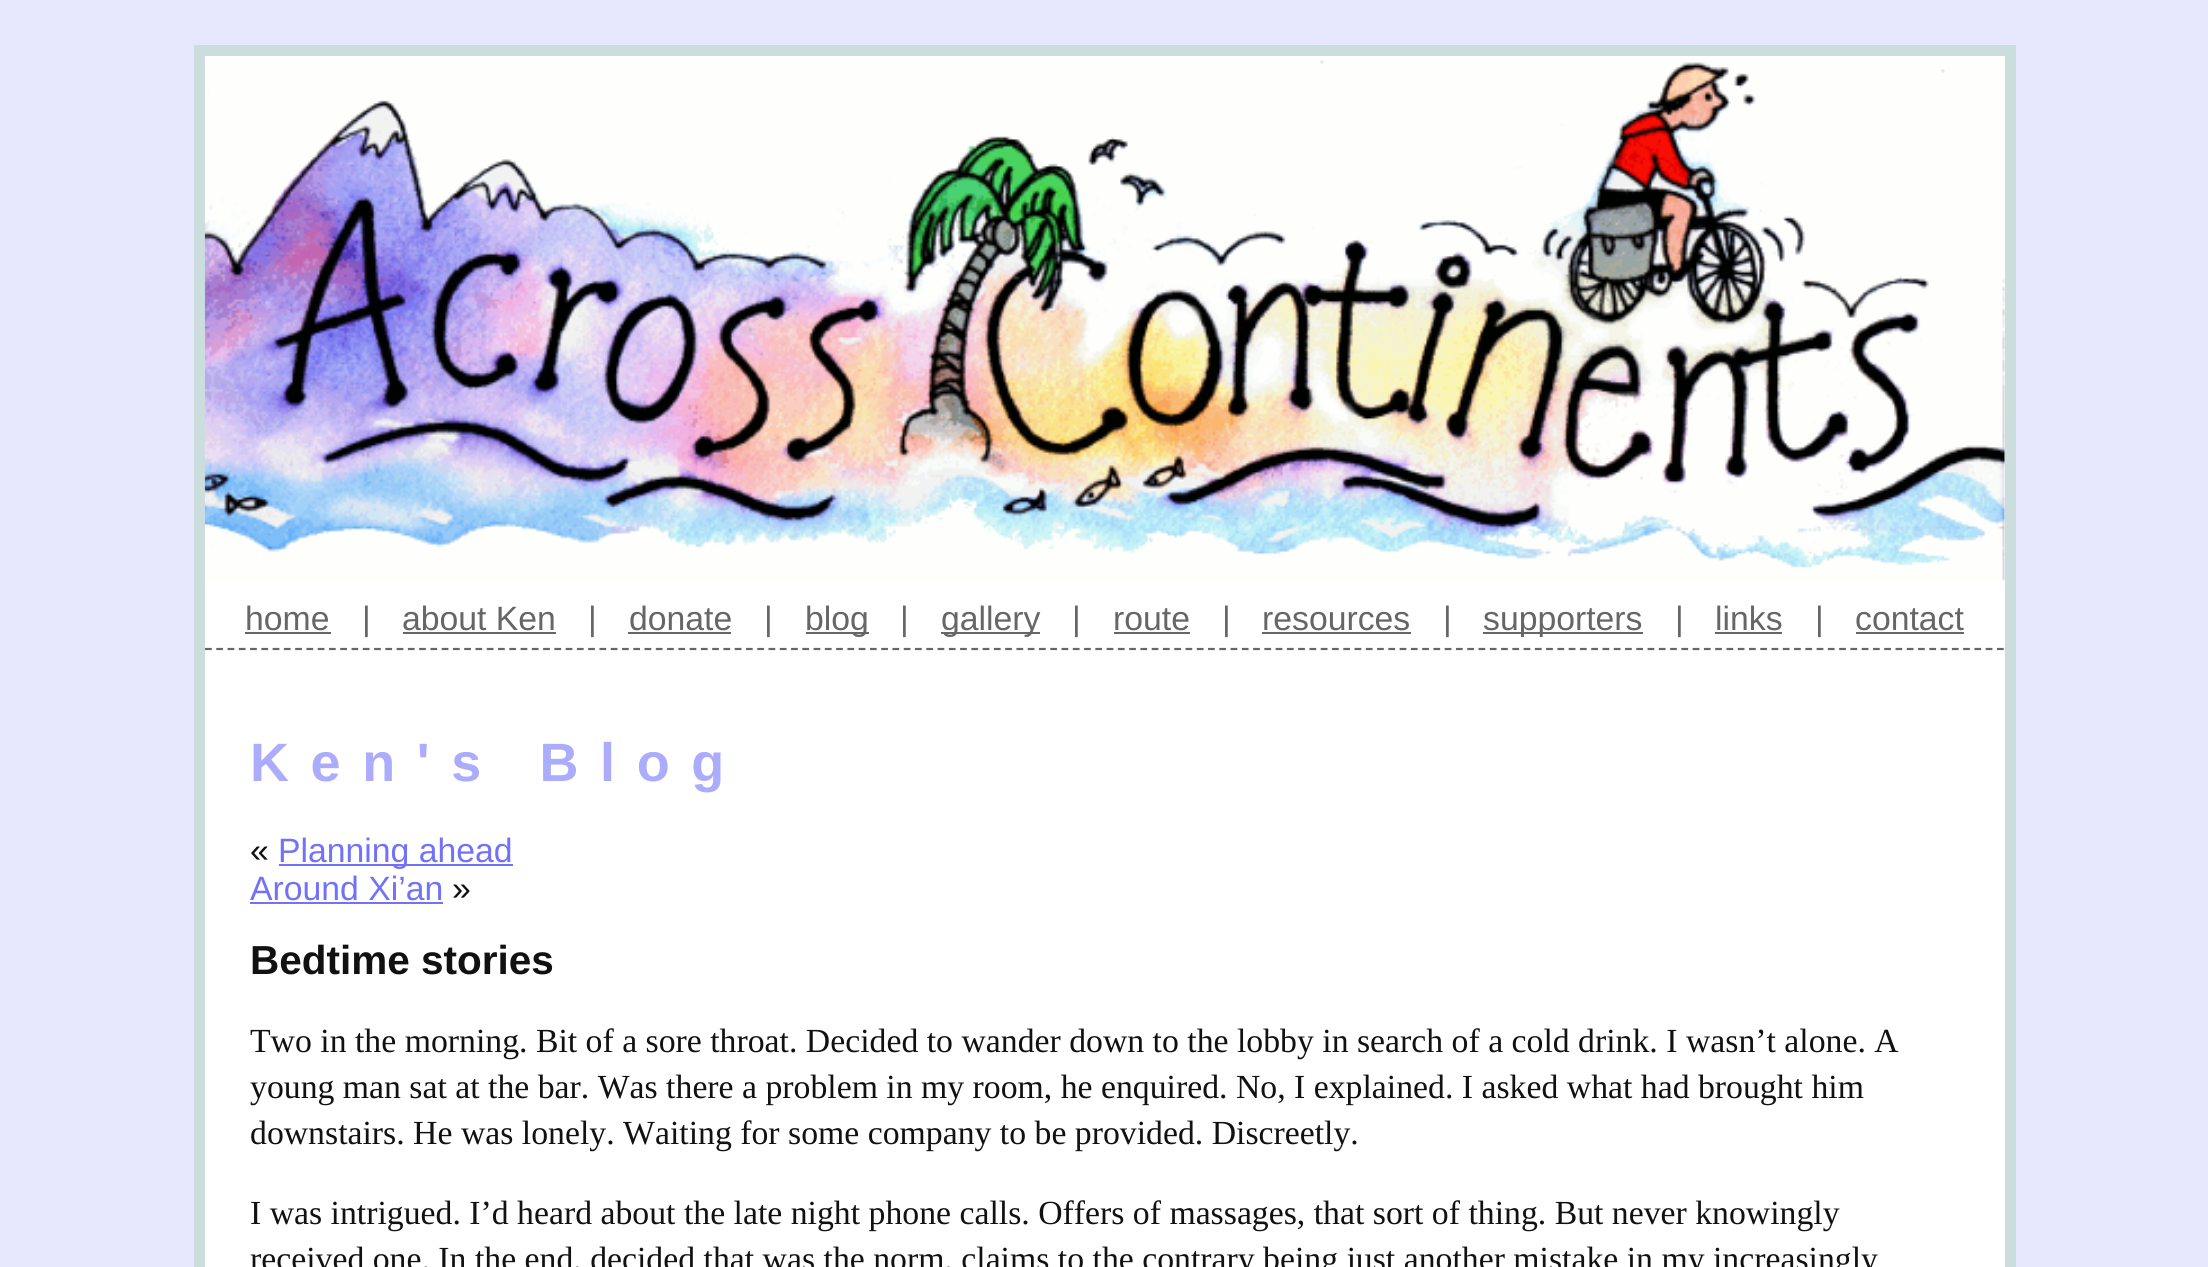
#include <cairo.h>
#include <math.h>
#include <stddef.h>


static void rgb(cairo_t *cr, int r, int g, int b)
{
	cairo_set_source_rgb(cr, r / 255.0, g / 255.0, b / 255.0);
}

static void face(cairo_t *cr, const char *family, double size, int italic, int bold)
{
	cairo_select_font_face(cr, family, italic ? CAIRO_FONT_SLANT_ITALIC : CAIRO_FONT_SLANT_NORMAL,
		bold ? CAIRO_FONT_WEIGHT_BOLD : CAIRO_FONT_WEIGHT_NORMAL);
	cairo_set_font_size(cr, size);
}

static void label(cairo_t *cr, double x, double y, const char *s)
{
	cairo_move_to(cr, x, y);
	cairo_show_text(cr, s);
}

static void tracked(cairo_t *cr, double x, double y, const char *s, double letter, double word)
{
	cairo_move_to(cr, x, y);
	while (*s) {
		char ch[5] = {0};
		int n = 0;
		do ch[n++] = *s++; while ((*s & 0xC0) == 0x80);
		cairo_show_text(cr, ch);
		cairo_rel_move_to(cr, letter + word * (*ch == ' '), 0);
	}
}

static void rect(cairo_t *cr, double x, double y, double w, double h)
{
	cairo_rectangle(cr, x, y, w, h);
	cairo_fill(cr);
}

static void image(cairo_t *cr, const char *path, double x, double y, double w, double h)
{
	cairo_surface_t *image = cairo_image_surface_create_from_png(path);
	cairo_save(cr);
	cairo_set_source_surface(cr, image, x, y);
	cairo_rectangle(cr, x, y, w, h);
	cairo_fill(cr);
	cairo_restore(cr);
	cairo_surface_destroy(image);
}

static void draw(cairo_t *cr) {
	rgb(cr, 231, 231, 254);
	cairo_paint(cr);
	rgb(cr, 255, 255, 255);
	cairo_rectangle(cr, 199.5, 50.5, 1811, 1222);
	cairo_fill_preserve(cr);
	rgb(cr, 204, 221, 221);
	cairo_set_line_width(cr, 11);
	cairo_stroke(cr);
	image(cr, "image0.png", 204, 57, 1801, 524);
	cairo_new_path(cr);
	cairo_move_to(cr, 205, 649);
	cairo_line_to(cr, 2005, 649);
	rgb(cr, 102, 102, 102);
	cairo_set_line_width(cr, 2.2);
	cairo_set_dash(cr, (double[]){6.75, 4.52}, 2, 0);
	cairo_stroke(cr);
	face(cr, "Liberation Sans", 33.75, 0, 0);
	label(cr, 245, 630, "home");
	rect(cr, 245, 632, 86, 2);
	label(cr, 362, 630, "|");
	label(cr, 402, 630, "about Ken");
	rect(cr, 403, 632, 153, 2);
	label(cr, 588, 630, "|");
	label(cr, 629, 630, "donate");
	rect(cr, 628, 632, 103, 2);
	label(cr, 764, 630, "|");
	rect(cr, 806, 632, 63, 2);
	label(cr, 805, 630, "blog");
	label(cr, 900, 630, "|");
	rect(cr, 941, 632, 99, 2);
	label(cr, 941, 630, "gallery");
	label(cr, 1072, 630, "|");
	label(cr, 1113, 630, "route");
	rect(cr, 1114, 632, 76, 2);
	label(cr, 1222, 630, "|");
	label(cr, 1262, 630, "resources");
	rect(cr, 1262, 632, 149, 2);
	label(cr, 1443, 630, "|");
	rect(cr, 1483, 632, 160, 2);
	label(cr, 1483, 630, "supporters");
	label(cr, 1675, 630, "|");
	label(cr, 1715, 630, "links");
	rect(cr, 1715, 632, 67, 2);
	label(cr, 1815, 630, "|");
	label(cr, 1855, 630, "contact");
	rect(cr, 1856, 632, 108, 2);
	face(cr, "Liberation Sans", 54, 0, 1);
	rgb(cr, 172, 172, 252);
	tracked(cr, 250, 781, "Ken's Blog", 21.6, 0);
	face(cr, "Liberation Sans", 33.75, 0, 0);
	rgb(cr, 17, 17, 17);
	label(cr, 250, 862, "«");
	rgb(cr, 113, 113, 249);
	rect(cr, 279, 864, 234, 2);
	label(cr, 278, 862, "Planning ahead");
	label(cr, 250, 900, "Around Xi’an");
	rect(cr, 250, 902, 193, 2);
	rgb(cr, 17, 17, 17);
	label(cr, 452, 900, "»");
	face(cr, "Liberation Sans", 40.5, 0, 1);
	label(cr, 250, 974, "Bedtime stories");
	face(cr, "Liberation Serif", 33.75, 0, 0);
	label(cr, 250, 1052, "Two in the morning. Bit of a sore throat. Decided to wander down to the lobby in search of a cold drink. I wasn’t alone. A");
	label(cr, 250, 1098, "young man sat at the bar. Was there a problem in my room, he enquired. No, I explained. I asked what had brought him");
	label(cr, 250, 1144, "downstairs. He was lonely. Waiting for some company to be provided. Discreetly.");
	label(cr, 250, 1224, "I was intrigued. I’d heard about the late night phone calls. Offers of massages, that sort of thing. But never knowingly");
	label(cr, 250, 1270, "received one. In the end, decided that was the norm, claims to the contrary being just another mistake in my increasingly");
}

int main(void) {
	cairo_surface_t *surface = cairo_image_surface_create(CAIRO_FORMAT_RGB24, 2208, 1267);
	cairo_t *cr = cairo_create(surface);
	cairo_font_options_t *options = cairo_font_options_create();
	cairo_font_options_set_hint_metrics(options, CAIRO_HINT_METRICS_OFF);
	cairo_font_options_set_hint_style(options, CAIRO_HINT_STYLE_NONE);
	cairo_set_font_options(cr, options);
	cairo_set_miter_limit(cr, 4);
	draw(cr);
	cairo_surface_write_to_png(surface, "render.png");
	cairo_font_options_destroy(options);
	cairo_destroy(cr);
	cairo_surface_destroy(surface);
	return 0;
}
